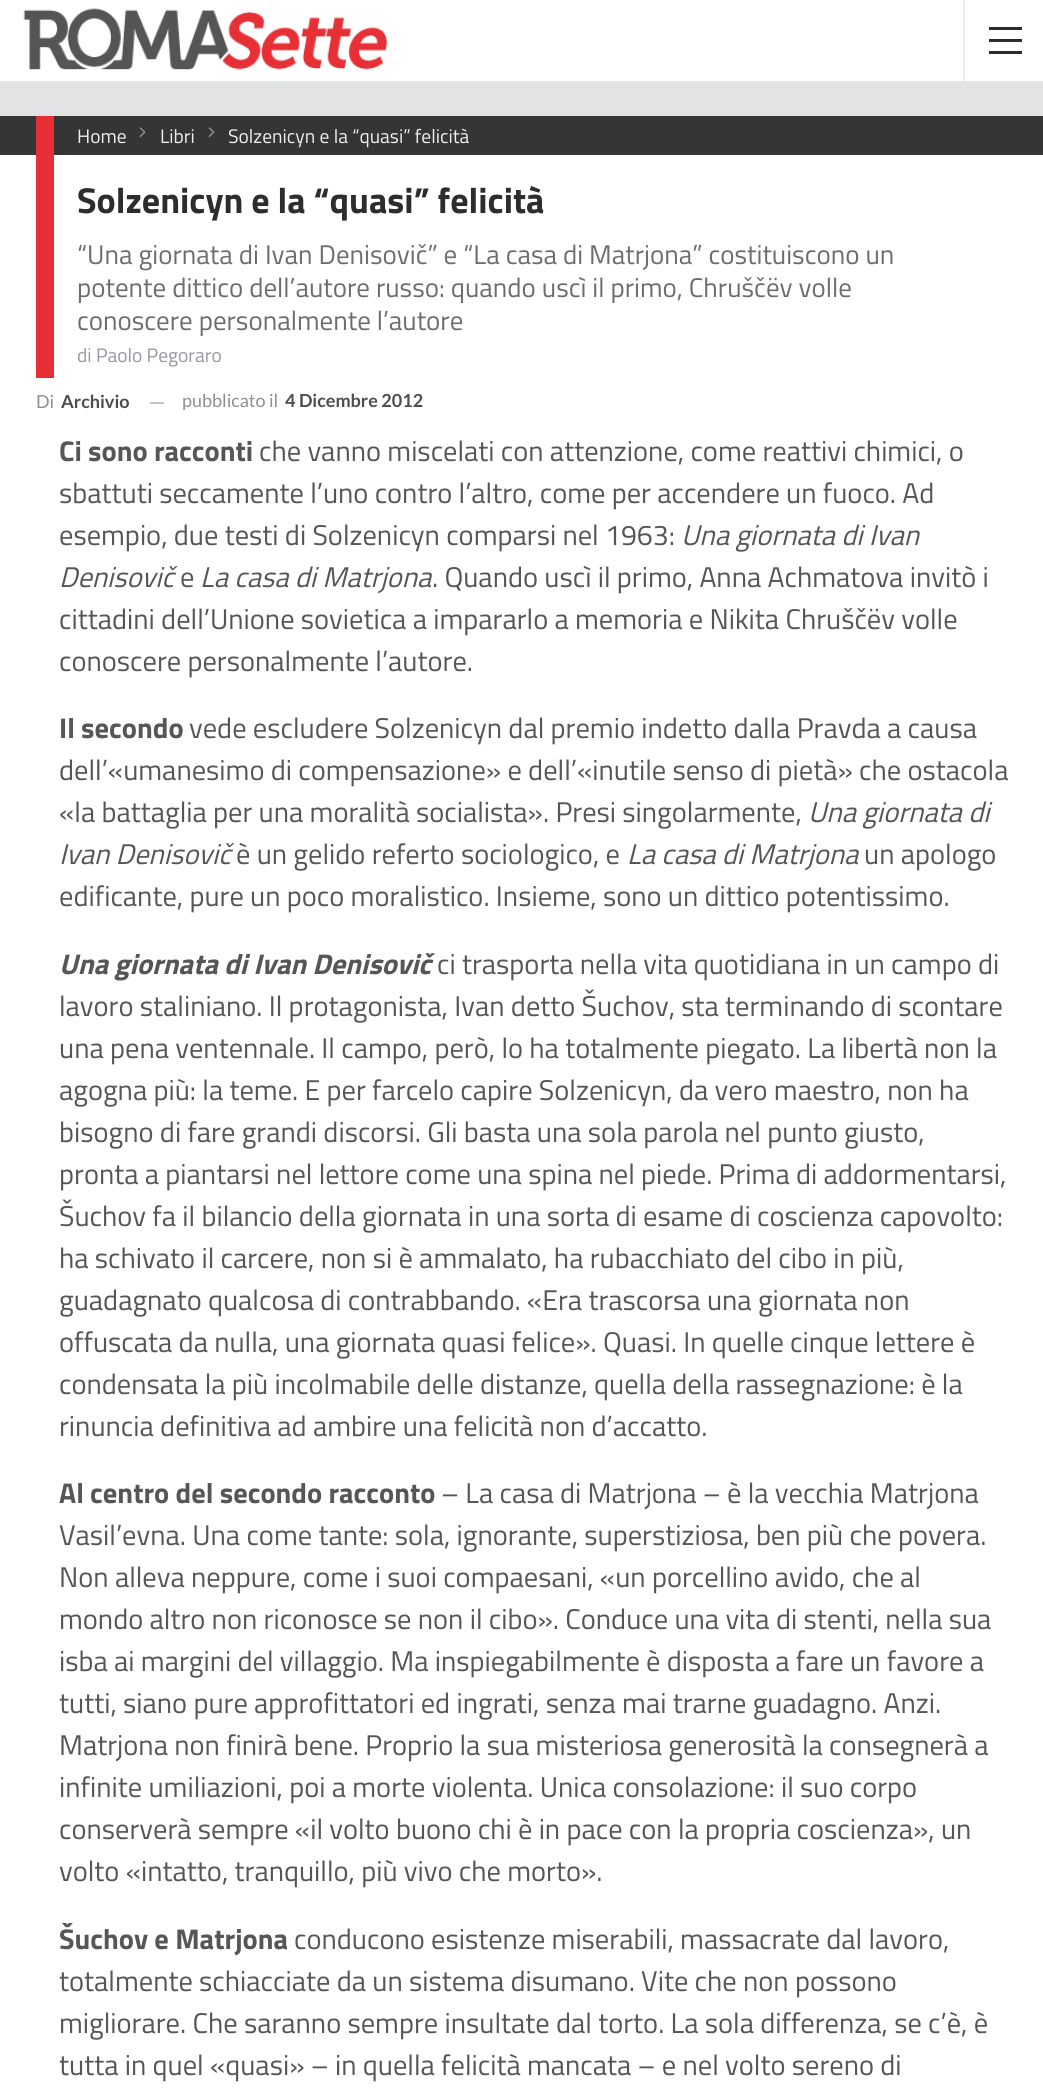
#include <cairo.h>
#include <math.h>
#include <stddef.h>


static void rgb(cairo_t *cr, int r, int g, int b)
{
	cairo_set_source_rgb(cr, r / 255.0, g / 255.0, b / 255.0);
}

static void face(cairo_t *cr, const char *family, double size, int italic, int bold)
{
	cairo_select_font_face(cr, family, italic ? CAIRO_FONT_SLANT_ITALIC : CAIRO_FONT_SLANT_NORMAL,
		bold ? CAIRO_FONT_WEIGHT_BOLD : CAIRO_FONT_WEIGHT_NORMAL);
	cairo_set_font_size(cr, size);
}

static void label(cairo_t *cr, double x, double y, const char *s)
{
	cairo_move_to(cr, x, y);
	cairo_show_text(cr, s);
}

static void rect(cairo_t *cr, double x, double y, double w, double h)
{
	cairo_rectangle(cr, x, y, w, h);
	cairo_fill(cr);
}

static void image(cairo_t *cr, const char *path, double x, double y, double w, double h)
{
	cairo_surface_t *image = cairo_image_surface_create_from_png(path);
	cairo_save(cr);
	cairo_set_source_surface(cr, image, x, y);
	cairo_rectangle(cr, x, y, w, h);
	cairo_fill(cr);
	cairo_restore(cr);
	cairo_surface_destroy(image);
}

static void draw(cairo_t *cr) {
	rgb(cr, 225, 227, 228);
	cairo_paint(cr);
	rgb(cr, 255, 255, 255);
	rect(cr, 0, 0, 1043, 81);
	rgb(cr, 229, 229, 229);
	rect(cr, 0, 81, 1043, 2);
	image(cr, "image0.png", 23, 8, 364, 62);
	rgb(cr, 237, 237, 237);
	rect(cr, 963, 0, 2, 81);
	rgb(cr, 44, 44, 44);
	rect(cr, 989, 39, 33, 3);
	rect(cr, 989, 27, 33, 3);
	rect(cr, 989, 51, 33, 3);
	rgb(cr, 53, 53, 53);
	rect(cr, 0, 116, 1043, 39);
	rgb(cr, 230, 48, 54);
	rect(cr, 36, 116, 18, 39);
	face(cr, "Titillium Web", 19.5, 0, 0);
	rgb(cr, 238, 238, 238);
	label(cr, 77, 143, "Home");
	image(cr, "image1.png", 139, 127, 7, 11);
	label(cr, 160, 143, "Libri");
	image(cr, "image1.png", 208, 127, 7, 11);
	label(cr, 228, 143, "Solzenicyn e la “quasi” felicità");
	rgb(cr, 255, 255, 255);
	rect(cr, 0, 155, 1043, 1941);
	rgb(cr, 230, 48, 54);
	rect(cr, 36, 155, 18, 223);
	face(cr, "Titillium Web", 36, 0, 1);
	rgb(cr, 45, 45, 45);
	label(cr, 77, 213, "Solzenicyn e la “quasi” felicità");
	face(cr, "Titillium Web", 27, 0, 0);
	rgb(cr, 109, 109, 109);
	label(cr, 77, 264, "“Una giornata di Ivan Denisovič” e “La casa di Matrjona” costituiscono un");
	label(cr, 77, 297, "potente dittico dell’autore russo: quando uscì il primo, Chruščëv volle");
	label(cr, 77, 330, "conoscere personalmente l’autore");
	face(cr, "Titillium Web", 19.5, 0, 0);
	rgb(cr, 151, 151, 166);
	label(cr, 77, 362, "di Paolo Pegoraro");
	face(cr, "Lato", 18, 0, 0);
	rgb(cr, 143, 143, 143);
	label(cr, 36, 408, "Di");
	face(cr, "Lato", 18, 0, 1);
	rgb(cr, 77, 77, 77);
	label(cr, 61, 408, "Archivio");
	rgb(cr, 196, 196, 196);
	rect(cr, 150, 402, 14, 2);
	face(cr, "Lato", 18, 0, 0);
	rgb(cr, 143, 143, 143);
	label(cr, 182, 407, "pubblicato il");
	face(cr, "Lato", 18, 0, 1);
	rgb(cr, 77, 77, 77);
	label(cr, 285, 407, "4 Dicembre 2012");
	face(cr, "Titillium Web", 28.5, 0, 1);
	rgb(cr, 86, 86, 86);
	label(cr, 59, 461, "Ci sono racconti");
	face(cr, "Titillium Web", 28.5, 0, 0);
	label(cr, 259, 461, "che vanno miscelati con attenzione, come reattivi chimici, o");
	label(cr, 59, 503, "sbattuti seccamente l’uno contro l’altro, come per accendere un fuoco. Ad");
	label(cr, 59, 545, "esempio, due testi di Solzenicyn comparsi nel 1963:");
	face(cr, "Titillium Web", 28.5, 1, 0);
	label(cr, 681, 545, "Una giornata di Ivan");
	label(cr, 59, 587, "Denisovič");
	face(cr, "Titillium Web", 28.5, 0, 0);
	label(cr, 180, 587, "e");
	face(cr, "Titillium Web", 28.5, 1, 0);
	label(cr, 200, 587, "La casa di Matrjona");
	face(cr, "Titillium Web", 28.5, 0, 0);
	label(cr, 432, 587, ". Quando uscì il primo, Anna Achmatova invitò i");
	label(cr, 59, 629, "cittadini dell’Unione sovietica a impararlo a memoria e Nikita Chruščëv volle");
	label(cr, 59, 671, "conoscere personalmente l’autore.");
	face(cr, "Titillium Web", 28.5, 0, 1);
	label(cr, 59, 738, "Il secondo");
	face(cr, "Titillium Web", 28.5, 0, 0);
	label(cr, 189, 738, "vede escludere Solzenicyn dal premio indetto dalla Pravda a causa");
	label(cr, 59, 780, "dell’«umanesimo di compensazione» e dell’«inutile senso di pietà» che ostacola");
	label(cr, 59, 822, "«la battaglia per una moralità socialista». Presi singolarmente,");
	face(cr, "Titillium Web", 28.5, 1, 0);
	label(cr, 808, 822, "Una giornata di");
	label(cr, 59, 864, "Ivan Denisovič");
	face(cr, "Titillium Web", 28.5, 0, 0);
	label(cr, 236, 864, "è un gelido referto sociologico, e");
	face(cr, "Titillium Web", 28.5, 1, 0);
	label(cr, 627, 864, "La casa di Matrjona");
	face(cr, "Titillium Web", 28.5, 0, 0);
	label(cr, 864, 864, "un apologo");
	label(cr, 59, 906, "edificante, pure un poco moralistico. Insieme, sono un dittico potentissimo.");
	face(cr, "Titillium Web", 28.5, 1, 1);
	label(cr, 59, 974, "Una giornata di Ivan Denisovič");
	face(cr, "Titillium Web", 28.5, 0, 0);
	label(cr, 437, 974, "ci trasporta nella vita quotidiana in un campo di");
	label(cr, 59, 1016, "lavoro staliniano. Il protagonista, Ivan detto Šuchov, sta terminando di scontare");
	label(cr, 59, 1058, "una pena ventennale. Il campo, però, lo ha totalmente piegato. La libertà non la");
	label(cr, 59, 1100, "agogna più: la teme. E per farcelo capire Solzenicyn, da vero maestro, non ha");
	label(cr, 59, 1142, "bisogno di fare grandi discorsi. Gli basta una sola parola nel punto giusto,");
	label(cr, 59, 1184, "pronta a piantarsi nel lettore come una spina nel piede. Prima di addormentarsi,");
	label(cr, 59, 1226, "Šuchov fa il bilancio della giornata in una sorta di esame di coscienza capovolto:");
	label(cr, 59, 1268, "ha schivato il carcere, non si è ammalato, ha rubacchiato del cibo in più,");
	label(cr, 59, 1310, "guadagnato qualcosa di contrabbando. «Era trascorsa una giornata non");
	label(cr, 59, 1352, "offuscata da nulla, una giornata quasi felice». Quasi. In quelle cinque lettere è");
	label(cr, 59, 1394, "condensata la più incolmabile delle distanze, quella della rassegnazione: è la");
	label(cr, 59, 1436, "rinuncia definitiva ad ambire una felicità non d’accatto.");
	face(cr, "Titillium Web", 28.5, 0, 1);
	label(cr, 59, 1503, "Al centro del secondo racconto");
	face(cr, "Titillium Web", 28.5, 0, 0);
	label(cr, 441, 1503, "– La casa di Matrjona – è la vecchia Matrjona");
	label(cr, 59, 1545, "Vasil’evna. Una come tante: sola, ignorante, superstiziosa, ben più che povera.");
	label(cr, 59, 1587, "Non alleva neppure, come i suoi compaesani, «un porcellino avido, che al");
	label(cr, 59, 1629, "mondo altro non riconosce se non il cibo». Conduce una vita di stenti, nella sua");
	label(cr, 59, 1671, "isba ai margini del villaggio. Ma inspiegabilmente è disposta a fare un favore a");
	label(cr, 59, 1713, "tutti, siano pure approfittatori ed ingrati, senza mai trarne guadagno. Anzi.");
	label(cr, 59, 1755, "Matrjona non finirà bene. Proprio la sua misteriosa generosità la consegnerà a");
	label(cr, 59, 1797, "infinite umiliazioni, poi a morte violenta. Unica consolazione: il suo corpo");
	label(cr, 59, 1839, "conserverà sempre «il volto buono chi è in pace con la propria coscienza», un");
	label(cr, 59, 1881, "volto «intatto, tranquillo, più vivo che morto».");
	face(cr, "Titillium Web", 28.5, 0, 1);
	label(cr, 59, 1949, "Šuchov e Matrjona");
	face(cr, "Titillium Web", 28.5, 0, 0);
	label(cr, 294, 1949, "conducono esistenze miserabili, massacrate dal lavoro,");
	label(cr, 59, 1991, "totalmente schiacciate da un sistema disumano. Vite che non possono");
	label(cr, 59, 2033, "migliorare. Che saranno sempre insultate dal torto. La sola differenza, se c’è, è");
	label(cr, 59, 2075, "tutta in quel «quasi» – in quella felicità mancata – e nel volto sereno di");
}

int main(void) {
	cairo_surface_t *surface = cairo_image_surface_create(CAIRO_FORMAT_RGB24, 1043, 2096);
	cairo_t *cr = cairo_create(surface);
	cairo_font_options_t *options = cairo_font_options_create();
	cairo_font_options_set_hint_metrics(options, CAIRO_HINT_METRICS_OFF);
	cairo_font_options_set_hint_style(options, CAIRO_HINT_STYLE_NONE);
	cairo_set_font_options(cr, options);
	cairo_set_miter_limit(cr, 4);
	draw(cr);
	cairo_surface_write_to_png(surface, "render.png");
	cairo_font_options_destroy(options);
	cairo_destroy(cr);
	cairo_surface_destroy(surface);
	return 0;
}
